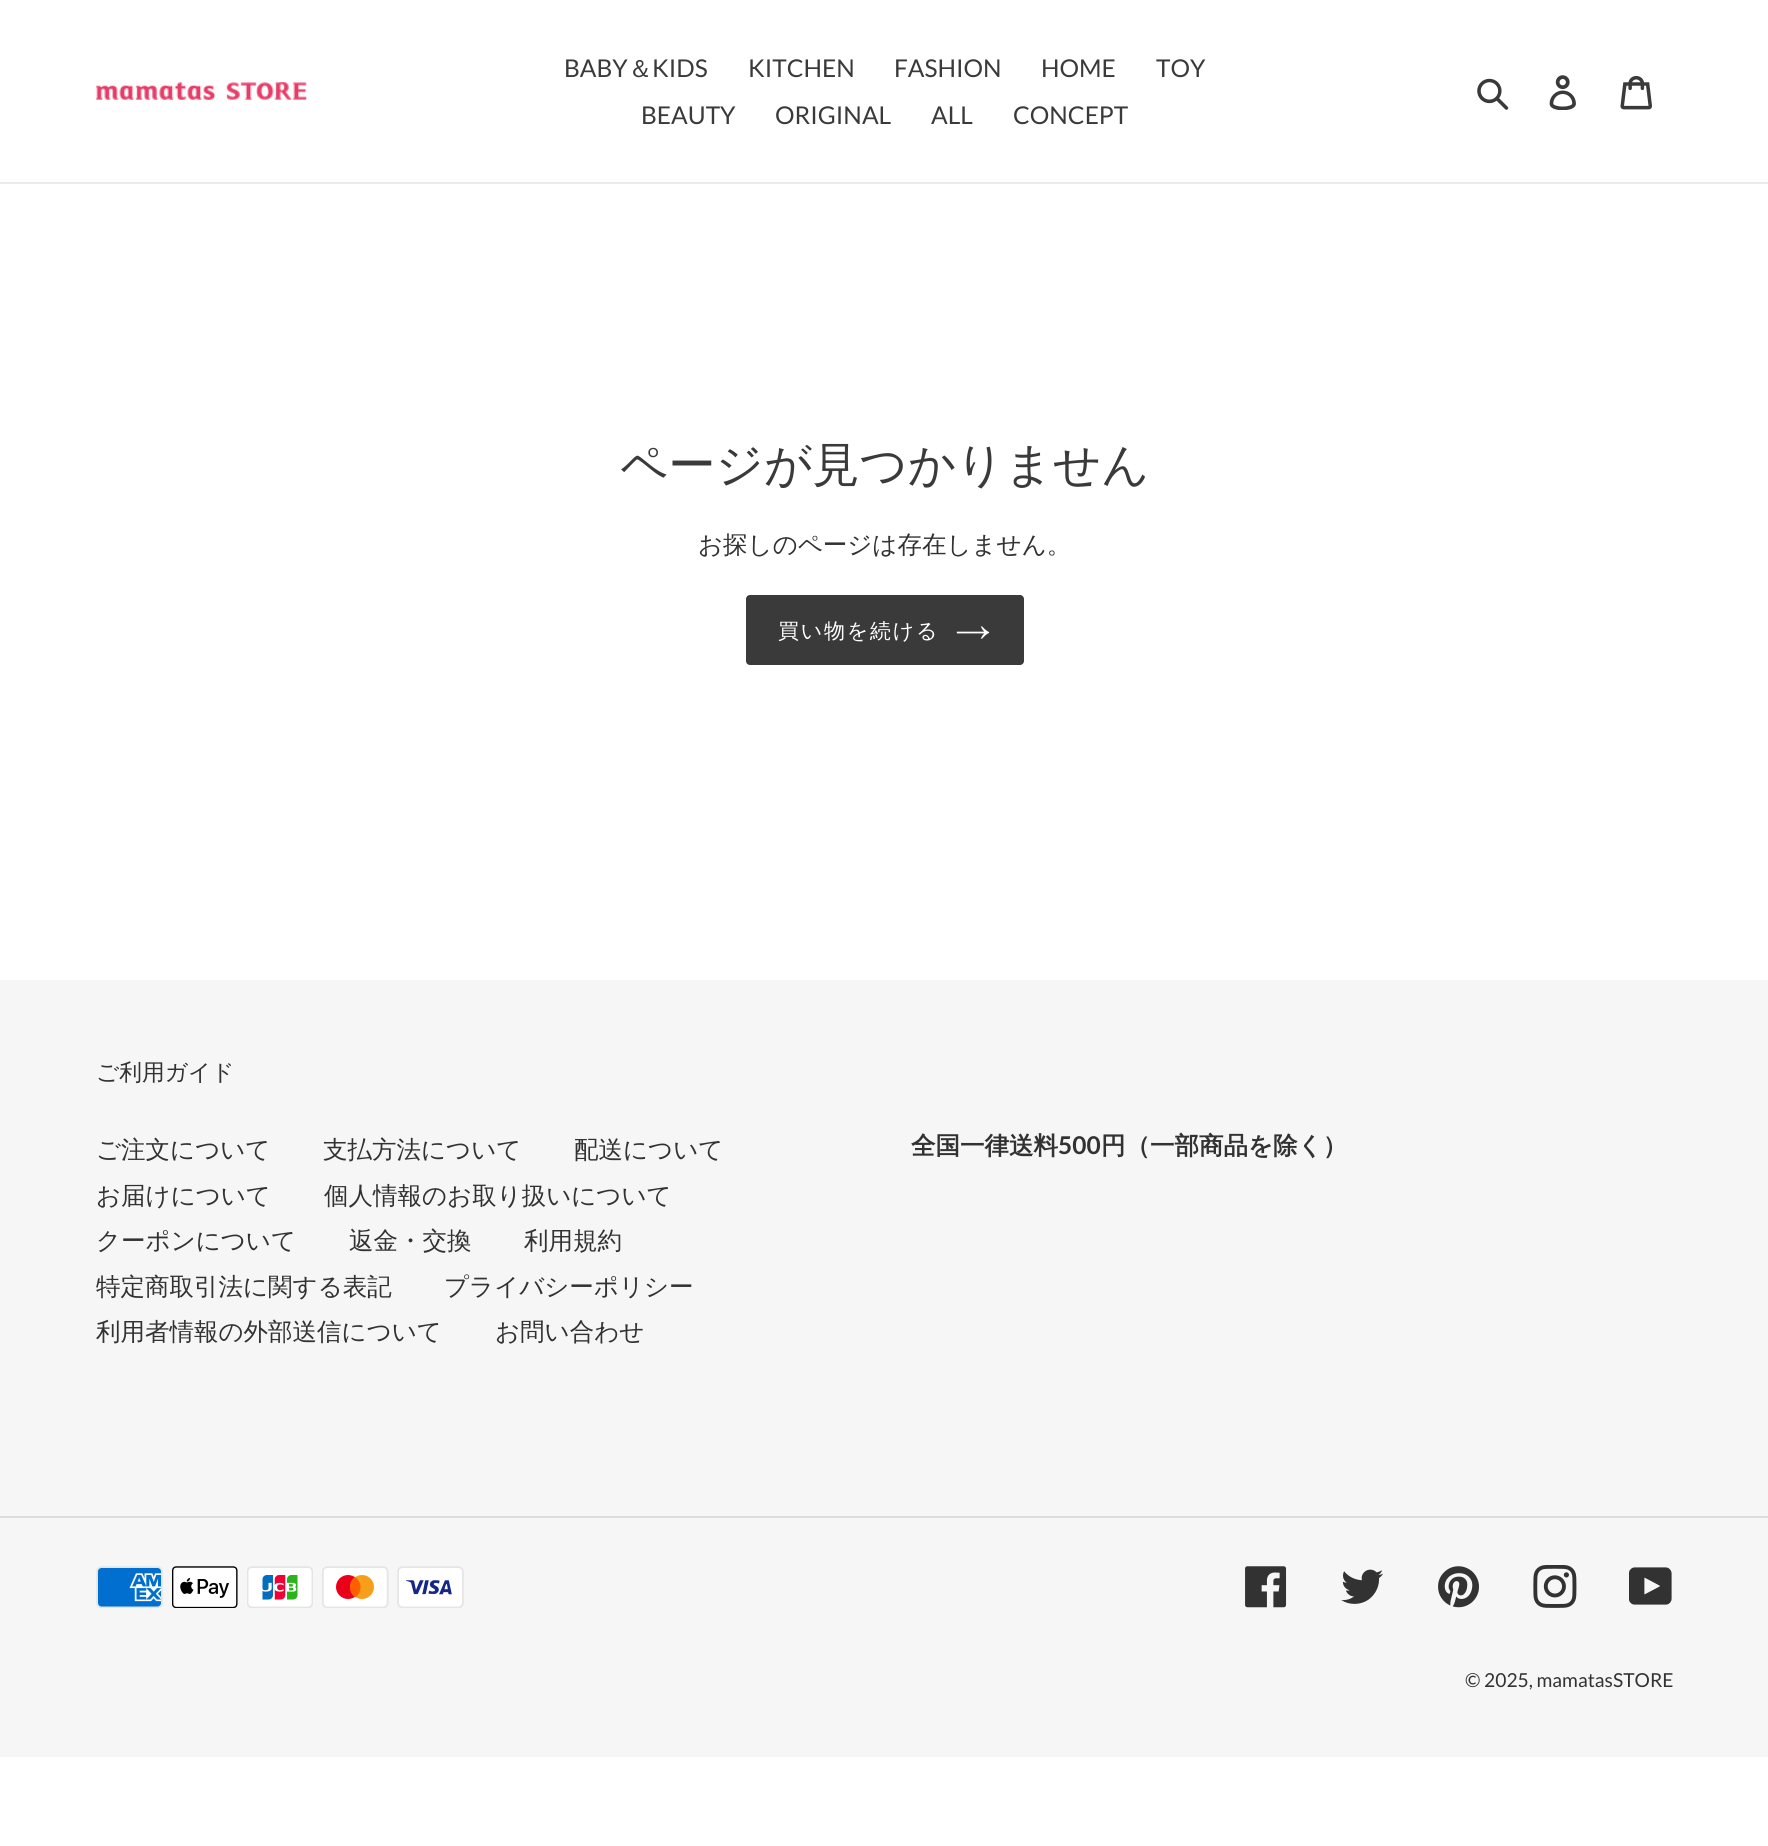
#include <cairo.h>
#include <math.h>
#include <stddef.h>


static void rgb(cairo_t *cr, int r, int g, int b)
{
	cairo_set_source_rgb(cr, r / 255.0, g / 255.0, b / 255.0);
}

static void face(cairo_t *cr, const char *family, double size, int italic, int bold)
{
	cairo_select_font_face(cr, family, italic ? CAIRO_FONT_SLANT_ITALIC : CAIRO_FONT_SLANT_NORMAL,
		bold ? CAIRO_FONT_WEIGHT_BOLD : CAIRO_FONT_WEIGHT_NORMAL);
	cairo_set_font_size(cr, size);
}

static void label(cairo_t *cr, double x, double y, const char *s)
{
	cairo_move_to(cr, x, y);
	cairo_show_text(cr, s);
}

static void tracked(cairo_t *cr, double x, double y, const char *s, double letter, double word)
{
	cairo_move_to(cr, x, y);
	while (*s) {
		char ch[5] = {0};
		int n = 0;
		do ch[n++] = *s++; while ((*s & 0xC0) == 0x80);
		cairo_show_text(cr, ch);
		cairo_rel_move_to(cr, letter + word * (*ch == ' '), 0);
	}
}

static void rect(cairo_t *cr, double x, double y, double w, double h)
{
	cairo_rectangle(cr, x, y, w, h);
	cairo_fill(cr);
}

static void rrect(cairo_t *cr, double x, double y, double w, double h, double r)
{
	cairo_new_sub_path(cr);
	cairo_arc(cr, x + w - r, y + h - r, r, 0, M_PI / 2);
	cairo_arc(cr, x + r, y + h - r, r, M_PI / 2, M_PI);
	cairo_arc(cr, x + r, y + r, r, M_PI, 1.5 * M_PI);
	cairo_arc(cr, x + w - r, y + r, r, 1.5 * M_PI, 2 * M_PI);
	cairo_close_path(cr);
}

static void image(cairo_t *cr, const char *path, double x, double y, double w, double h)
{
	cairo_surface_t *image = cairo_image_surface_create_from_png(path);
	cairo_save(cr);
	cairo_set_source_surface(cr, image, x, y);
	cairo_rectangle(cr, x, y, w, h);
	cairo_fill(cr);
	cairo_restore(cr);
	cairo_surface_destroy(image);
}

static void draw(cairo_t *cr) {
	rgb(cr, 255, 255, 255);
	cairo_paint(cr);
	rgb(cr, 235, 235, 235);
	rect(cr, 0, 182, 1768, 2);
	image(cr, "image0.png", 96, 82, 211, 18);
	face(cr, "Lato", 24.5, 0, 0);
	rgb(cr, 58, 58, 58);
	label(cr, 564, 77, "BABY");
	face(cr, "WenQuanYi Zen Hei Medium", 24.5, 0, 0);
	label(cr, 628, 77, "＆");
	face(cr, "Lato", 24.5, 0, 0);
	label(cr, 652, 77, "KIDS");
	label(cr, 748, 77, "KITCHEN");
	label(cr, 894, 77, "FASHION");
	label(cr, 1041, 77, "HOME");
	label(cr, 1156, 77, "TOY");
	label(cr, 641, 124, "BEAUTY");
	label(cr, 775, 124, "ORIGINAL");
	label(cr, 931, 124, "ALL");
	label(cr, 1013, 124, "CONCEPT");
	image(cr, "image1.png", 1477, 78, 32, 32);
	image(cr, "image2.png", 1549, 75, 27, 35);
	image(cr, "image3.png", 1620, 75, 32, 35);
	face(cr, "WenQuanYi Zen Hei Medium", 47.25, 0, 0);
	label(cr, 620, 481, "ページが見つかりません");
	face(cr, "WenQuanYi Zen Hei Medium", 24.5, 0, 0);
	rgb(cr, 51, 50, 50);
	label(cr, 698, 553, "お探しのページは存在しません。");
	rgb(cr, 58, 58, 58);
	rrect(cr, 746, 595, 278, 70, 4);
	cairo_fill(cr);
	face(cr, "WenQuanYi Zen Hei Medium", 21, 0, 0);
	rgb(cr, 255, 255, 255);
	tracked(cr, 778, 638, "買い物を続ける", 1.75, 0);
	image(cr, "image4.png", 956, 626, 34, 13);
	rgb(cr, 246, 246, 246);
	rect(cr, 0, 980, 1768, 777);
	face(cr, "WenQuanYi Zen Hei Medium", 22.75, 0, 0);
	rgb(cr, 51, 50, 50);
	label(cr, 96, 1080, "ご利用ガイド");
	face(cr, "WenQuanYi Zen Hei Medium", 24.5, 0, 0);
	label(cr, 96, 1158, "ご注文について");
	label(cr, 323, 1158, "支払方法について");
	label(cr, 574, 1158, "配送について");
	label(cr, 96, 1204, "お届けについて");
	label(cr, 324, 1204, "個人情報のお取り扱いについて");
	label(cr, 96, 1249, "クーポンについて");
	label(cr, 349, 1249, "返金・交換");
	label(cr, 524, 1249, "利用規約");
	label(cr, 96, 1295, "特定商取引法に関する表記");
	label(cr, 444, 1295, "プライバシーポリシー");
	label(cr, 96, 1340, "利用者情報の外部送信について");
	label(cr, 495, 1340, "お問い合わせ");
	face(cr, "WenQuanYi Zen Hei", 24.5, 0, 1);
	label(cr, 911, 1154, "全国一律送料");
	face(cr, "Lato", 24.5, 0, 1);
	label(cr, 1058, 1154, "500");
	face(cr, "WenQuanYi Zen Hei", 24.5, 0, 1);
	label(cr, 1101, 1154, "円（一部商品を除く）");
	rgb(cr, 221, 221, 221);
	rect(cr, 0, 1516, 1768, 2);
	image(cr, "image5.png", 96, 1566, 67, 42);
	image(cr, "image6.png", 172, 1566, 66, 42);
	image(cr, "image7.png", 247, 1566, 66, 42);
	image(cr, "image8.png", 322, 1566, 67, 42);
	image(cr, "image9.png", 397, 1566, 67, 42);
	image(cr, "image10.png", 1245, 1566, 42, 42);
	image(cr, "image11.png", 1341, 1569, 43, 35);
	image(cr, "image12.png", 1438, 1566, 41, 42);
	image(cr, "image13.png", 1533, 1565, 44, 43);
	image(cr, "image14.png", 1629, 1567, 43, 38);
	face(cr, "Lato", 19.25, 0, 0);
	rgb(cr, 51, 50, 50);
	label(cr, 1465, 1687, "© 2025, mamatasSTORE");
}

int main(void) {
	cairo_surface_t *surface = cairo_image_surface_create(CAIRO_FORMAT_RGB24, 1768, 1846);
	cairo_t *cr = cairo_create(surface);
	cairo_font_options_t *options = cairo_font_options_create();
	cairo_font_options_set_hint_metrics(options, CAIRO_HINT_METRICS_OFF);
	cairo_font_options_set_hint_style(options, CAIRO_HINT_STYLE_NONE);
	cairo_set_font_options(cr, options);
	cairo_set_miter_limit(cr, 4);
	draw(cr);
	cairo_surface_write_to_png(surface, "render.png");
	cairo_font_options_destroy(options);
	cairo_destroy(cr);
	cairo_surface_destroy(surface);
	return 0;
}
